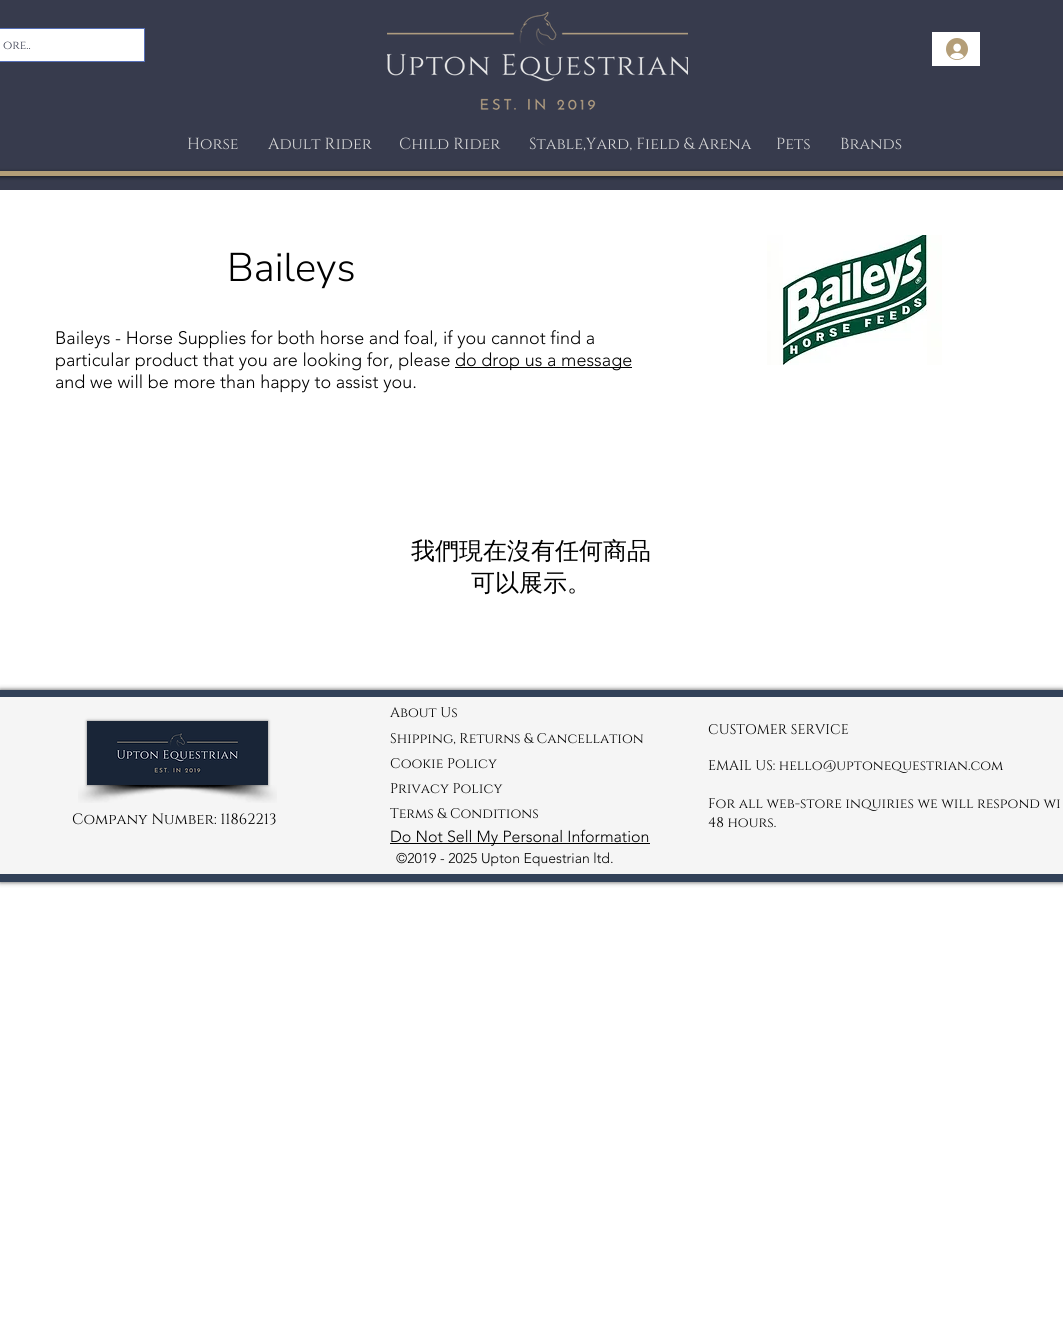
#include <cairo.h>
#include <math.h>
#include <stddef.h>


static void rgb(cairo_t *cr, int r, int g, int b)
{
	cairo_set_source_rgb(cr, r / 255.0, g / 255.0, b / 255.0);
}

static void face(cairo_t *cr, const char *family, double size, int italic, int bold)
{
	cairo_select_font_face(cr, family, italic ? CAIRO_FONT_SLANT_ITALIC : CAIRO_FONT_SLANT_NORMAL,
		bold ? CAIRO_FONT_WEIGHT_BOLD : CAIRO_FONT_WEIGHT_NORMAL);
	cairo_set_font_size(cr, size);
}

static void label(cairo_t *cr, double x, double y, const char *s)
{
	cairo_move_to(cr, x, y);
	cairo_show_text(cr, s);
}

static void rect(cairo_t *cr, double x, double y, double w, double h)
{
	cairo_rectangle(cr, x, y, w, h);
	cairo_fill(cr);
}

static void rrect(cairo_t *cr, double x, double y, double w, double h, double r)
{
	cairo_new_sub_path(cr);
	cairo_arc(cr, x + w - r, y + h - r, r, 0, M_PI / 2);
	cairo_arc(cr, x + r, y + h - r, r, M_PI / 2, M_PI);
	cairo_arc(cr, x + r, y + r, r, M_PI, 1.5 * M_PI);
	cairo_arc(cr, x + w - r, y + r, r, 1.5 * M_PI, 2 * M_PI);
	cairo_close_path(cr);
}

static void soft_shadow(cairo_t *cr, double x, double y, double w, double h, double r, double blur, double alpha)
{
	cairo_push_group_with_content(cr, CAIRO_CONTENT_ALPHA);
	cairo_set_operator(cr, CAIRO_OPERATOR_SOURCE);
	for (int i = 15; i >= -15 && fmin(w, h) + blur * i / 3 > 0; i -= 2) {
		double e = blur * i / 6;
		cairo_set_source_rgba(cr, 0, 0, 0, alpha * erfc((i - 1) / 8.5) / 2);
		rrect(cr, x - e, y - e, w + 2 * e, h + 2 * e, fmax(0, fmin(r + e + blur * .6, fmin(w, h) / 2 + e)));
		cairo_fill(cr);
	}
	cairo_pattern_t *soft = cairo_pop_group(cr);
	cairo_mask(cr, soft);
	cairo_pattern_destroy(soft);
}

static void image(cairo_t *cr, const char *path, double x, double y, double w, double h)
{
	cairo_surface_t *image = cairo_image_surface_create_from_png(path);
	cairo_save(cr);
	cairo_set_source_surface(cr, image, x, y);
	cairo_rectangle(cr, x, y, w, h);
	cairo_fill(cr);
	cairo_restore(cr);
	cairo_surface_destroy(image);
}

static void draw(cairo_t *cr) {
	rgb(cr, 255, 255, 255);
	cairo_paint(cr);
	rgb(cr, 55, 59, 77);
	rect(cr, 0, 0, 1063, 190);
	cairo_rectangle(cr, -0.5, 28.5, 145, 33);
	rgb(cr, 86, 111, 184);
	cairo_set_line_width(cr, 1);
	cairo_stroke(cr);
	rgb(cr, 255, 255, 255);
	rect(cr, 0, 29, 144, 32);
	face(cr, "Cinzel", 12, 0, 0);
	rgb(cr, 55, 59, 77);
	label(cr, 3, 49, "ore..");
	image(cr, "image0.png", 387, 12, 301, 98);
	rgb(cr, 255, 255, 255);
	rect(cr, 932, 32, 48, 34);
	image(cr, "image1.png", 946, 38, 22, 22);
	face(cr, "Cinzel", 16, 0, 0);
	rgb(cr, 219, 219, 219);
	label(cr, 187, 149, "Horse");
	label(cr, 268, 149, "Adult Rider");
	label(cr, 399, 149, "Child Rider");
	label(cr, 529, 149, "Stable,Yard, Field & Arena");
	label(cr, 776, 149, "Pets");
	label(cr, 840, 149, "Brands");
	rgb(cr, 0, 0, 0);
	soft_shadow(cr, -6, 172, 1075, 5, 0, 2, 0.6);
	rgb(cr, 180, 158, 120);
	rect(cr, 0, 171, 1063, 5);
	face(cr, "Nunito Sans Light", 40, 0, 0);
	rgb(cr, 0, 0, 0);
	label(cr, 227, 281, "Baileys");
	image(cr, "image2.png", 767, 235, 175, 130);
	face(cr, "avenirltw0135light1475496 Light", 18, 0, 0);
	label(cr, 55, 344, "Baileys - Horse Supplies for both horse and foal, if you cannot find a");
	label(cr, 55, 366, "particular product that you are looking for, please");
	rect(cr, 455, 367, 177, 1);
	label(cr, 455, 366, "do drop us a message");
	label(cr, 55, 388, "and we will be more than happy to assist you.");
	face(cr, "WenQuanYi Zen Hei Medium", 24, 0, 0);
	label(cr, 411, 559, "我們現在沒有任何商品");
	label(cr, 471, 591, "可以展示。");
	rgb(cr, 0, 0, 0);
	soft_shadow(cr, 0, 690, 1063, 192, 0, 2.5, 0.7);
	rgb(cr, 50, 65, 88);
	rect(cr, 0, 690, 1063, 192);
	rgb(cr, 245, 245, 245);
	rect(cr, 0, 697, 1063, 177);
	rgb(cr, 0, 0, 0);
	soft_shadow(cr, 87, 721, 181, 64, 0, 1.5, 0.5);
	image(cr, "image3.png", 87, 721, 181, 64);
	image(cr, "image4.png", 78, 785, 154, 18);
	image(cr, "image5.png", 151, 785, 126, 18);
	face(cr, "Cinzel", 15, 0, 0);
	rgb(cr, 0, 0, 0);
	label(cr, 72, 824, "Company Number: 11862213");
	face(cr, "Cinzel", 14, 0, 0);
	label(cr, 390, 717, "About Us");
	label(cr, 390, 743, "Shipping, Returns & Cancellation");
	label(cr, 390, 768, "Cookie Policy");
	label(cr, 390, 793, "Privacy Policy");
	label(cr, 390, 818, "Terms & Conditions");
	rect(cr, 390, 843, 260, 1);
	face(cr, "avenirltw0135light1475496 Light", 16, 0, 0);
	label(cr, 390, 842, "Do Not Sell My Personal Information");
	face(cr, "Cinzel", 14, 0, 0);
	label(cr, 708, 734, "CUSTOMER SERVICE");
	label(cr, 708, 770, "EMAIL US: hello@uptonequestrian.com");
	label(cr, 708, 808, "For all web-store inquiries we will respond wi");
	label(cr, 708, 827, "48 hours.");
	face(cr, "avenirltw0135light1475496 Light", 14, 0, 0);
	label(cr, 396, 863, "©2019 - 2025 Upton Equestrian ltd.");
}

int main(void) {
	cairo_surface_t *surface = cairo_image_surface_create(CAIRO_FORMAT_RGB24, 1063, 1323);
	cairo_t *cr = cairo_create(surface);
	cairo_font_options_t *options = cairo_font_options_create();
	cairo_font_options_set_hint_metrics(options, CAIRO_HINT_METRICS_OFF);
	cairo_font_options_set_hint_style(options, CAIRO_HINT_STYLE_NONE);
	cairo_set_font_options(cr, options);
	cairo_set_miter_limit(cr, 4);
	draw(cr);
	cairo_surface_write_to_png(surface, "render.png");
	cairo_font_options_destroy(options);
	cairo_destroy(cr);
	cairo_surface_destroy(surface);
	return 0;
}
